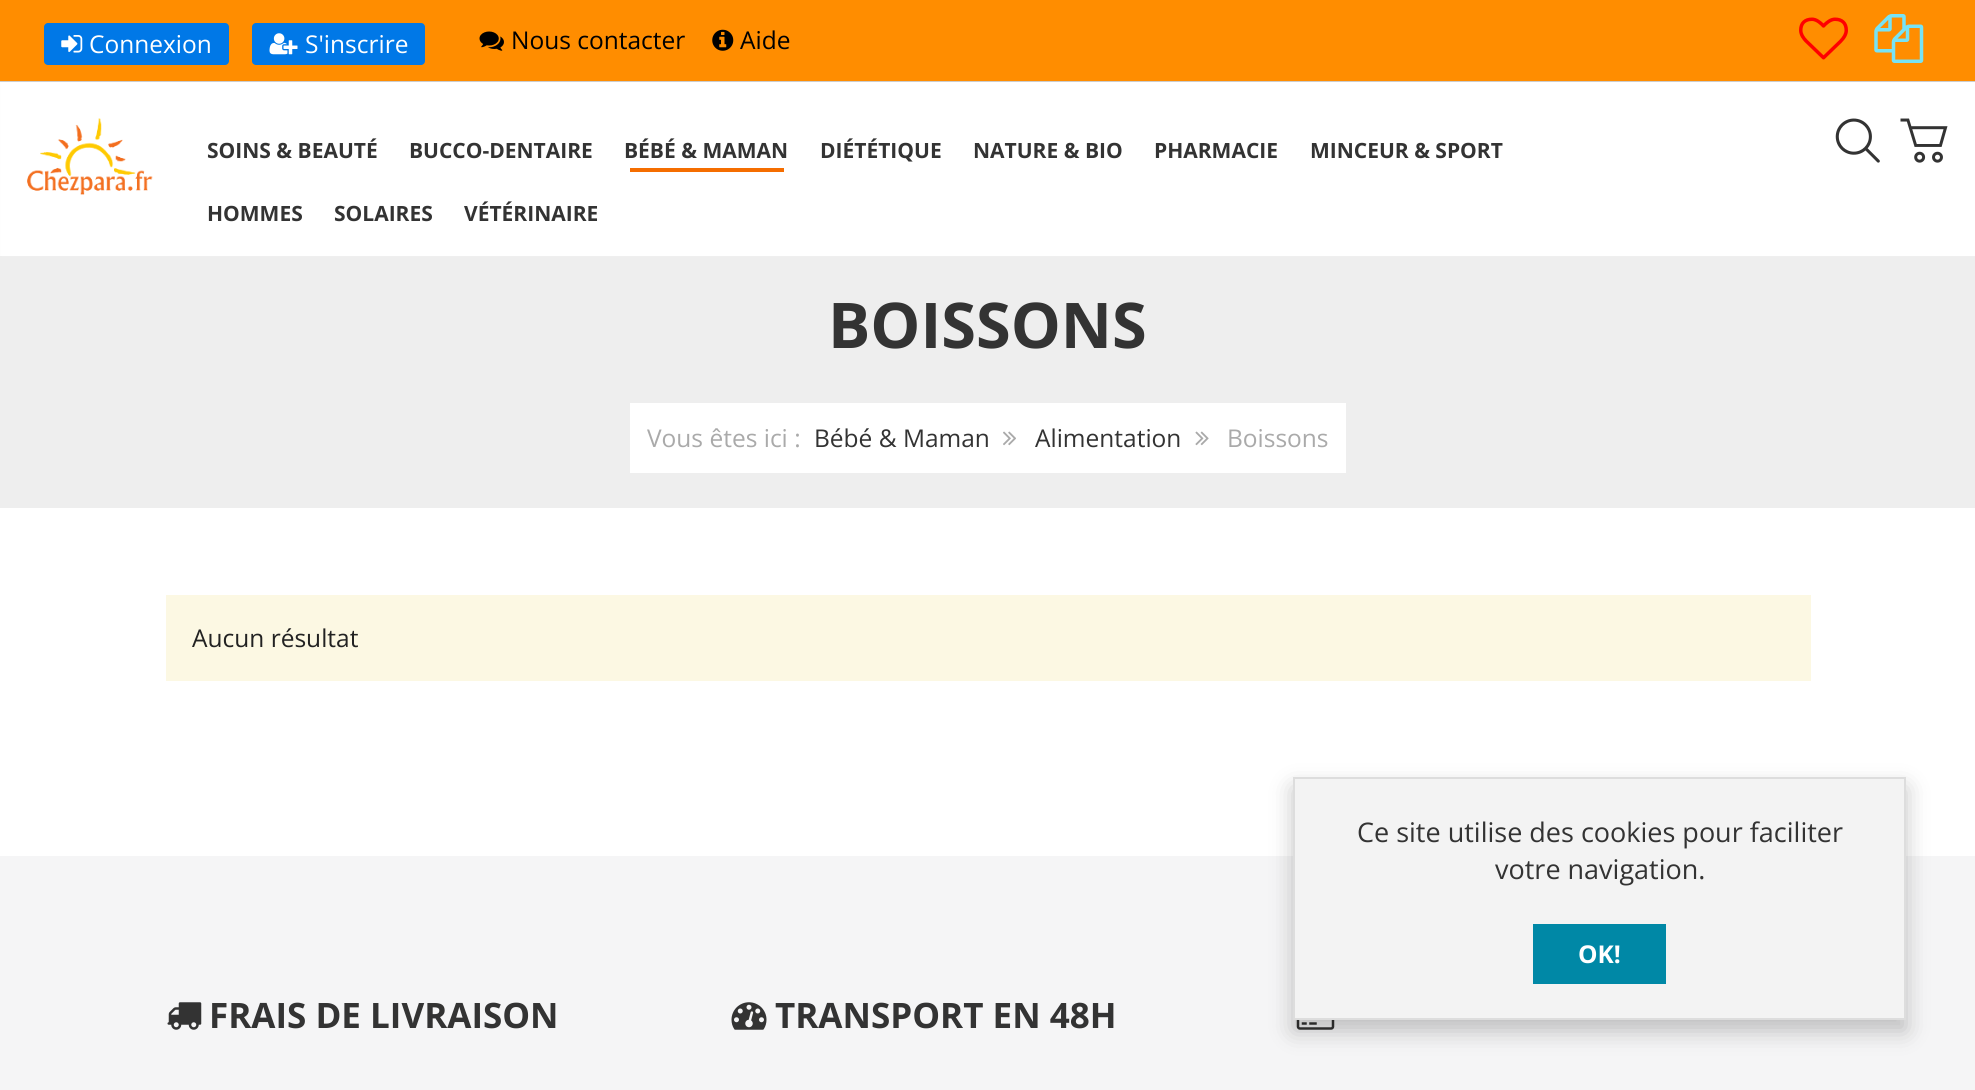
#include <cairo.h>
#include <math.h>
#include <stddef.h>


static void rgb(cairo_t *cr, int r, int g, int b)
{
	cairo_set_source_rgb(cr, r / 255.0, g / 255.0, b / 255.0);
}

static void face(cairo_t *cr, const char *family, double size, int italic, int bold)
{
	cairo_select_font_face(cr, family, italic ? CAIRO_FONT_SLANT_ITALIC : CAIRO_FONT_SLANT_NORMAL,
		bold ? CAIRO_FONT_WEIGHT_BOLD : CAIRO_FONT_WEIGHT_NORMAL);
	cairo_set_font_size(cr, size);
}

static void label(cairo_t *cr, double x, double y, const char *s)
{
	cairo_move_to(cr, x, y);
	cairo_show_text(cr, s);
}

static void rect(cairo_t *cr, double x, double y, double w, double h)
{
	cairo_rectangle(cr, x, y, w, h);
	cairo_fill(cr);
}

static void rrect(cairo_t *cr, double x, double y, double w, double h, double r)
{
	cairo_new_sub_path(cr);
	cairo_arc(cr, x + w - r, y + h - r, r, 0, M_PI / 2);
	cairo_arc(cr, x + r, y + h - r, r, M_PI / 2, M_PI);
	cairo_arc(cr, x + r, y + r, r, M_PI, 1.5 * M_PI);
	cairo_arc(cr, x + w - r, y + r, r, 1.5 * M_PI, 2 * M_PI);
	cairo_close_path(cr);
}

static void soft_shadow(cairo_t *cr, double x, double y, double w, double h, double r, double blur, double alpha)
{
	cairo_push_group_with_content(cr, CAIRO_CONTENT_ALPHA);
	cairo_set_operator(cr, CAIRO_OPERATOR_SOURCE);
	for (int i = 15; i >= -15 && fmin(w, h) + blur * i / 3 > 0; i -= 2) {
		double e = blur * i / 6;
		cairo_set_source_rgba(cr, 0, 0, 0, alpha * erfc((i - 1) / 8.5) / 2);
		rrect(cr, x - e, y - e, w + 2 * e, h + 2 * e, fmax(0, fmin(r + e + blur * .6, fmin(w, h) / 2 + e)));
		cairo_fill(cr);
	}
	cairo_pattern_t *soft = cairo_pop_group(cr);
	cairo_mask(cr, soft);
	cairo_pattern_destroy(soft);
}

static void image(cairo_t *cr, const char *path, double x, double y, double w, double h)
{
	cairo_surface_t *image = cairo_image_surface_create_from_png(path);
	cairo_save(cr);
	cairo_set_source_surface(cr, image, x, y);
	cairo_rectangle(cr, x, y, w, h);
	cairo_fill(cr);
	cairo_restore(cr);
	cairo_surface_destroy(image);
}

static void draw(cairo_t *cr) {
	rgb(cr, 255, 255, 255);
	cairo_paint(cr);
	rgb(cr, 255, 141, 0);
	rect(cr, 0, 0, 1975, 81);
	rgb(cr, 204, 204, 204);
	rect(cr, 0, 81, 1975, 1);
	rgb(cr, 0, 120, 231);
	rrect(cr, 44, 23, 185, 42, 4);
	cairo_fill(cr);
	image(cr, "image0.png", 61, 35, 22, 18);
	face(cr, "Open Sans", 24.5, 0, 0);
	rgb(cr, 255, 255, 255);
	label(cr, 89, 53, "Connexion");
	rgb(cr, 0, 120, 231);
	rrect(cr, 252, 23, 173, 42, 4);
	cairo_fill(cr);
	image(cr, "image1.png", 269, 33, 29, 22);
	rgb(cr, 255, 255, 255);
	label(cr, 305, 53, "S'inscrire");
	image(cr, "image2.png", 479, 31, 25, 20);
	rgb(cr, 0, 0, 0);
	label(cr, 511, 49, "Nous contacter");
	image(cr, "image3.png", 712, 29, 22, 22);
	label(cr, 740, 49, "Aide");
	image(cr, "image4.png", 1799, 17, 49, 43);
	image(cr, "image5.png", 1874, 14, 50, 49);
	rgb(cr, 238, 238, 238);
	rect(cr, 0, 256, 1975, 252);
	rgb(cr, 239, 239, 239);
	soft_shadow(cr, 2, 84, 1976, 173, 0, 1, 1);
	rgb(cr, 255, 255, 255);
	rect(cr, 1, 83, 1974, 173);
	image(cr, "image6.png", 27, 118, 126, 77);
	face(cr, "Open Sans", 21, 0, 1);
	rgb(cr, 51, 51, 51);
	label(cr, 207, 158, "SOINS & BEAUTÉ");
	label(cr, 409, 158, "BUCCO-DENTAIRE");
	label(cr, 624, 158, "BÉBÉ & MAMAN");
	rgb(cr, 245, 109, 0);
	rect(cr, 630, 168, 154, 4);
	rgb(cr, 51, 51, 51);
	label(cr, 820, 158, "DIÉTÉTIQUE");
	label(cr, 973, 158, "NATURE & BIO");
	label(cr, 1154, 158, "PHARMACIE");
	label(cr, 1310, 158, "MINCEUR & SPORT");
	label(cr, 207, 221, "HOMMES");
	label(cr, 334, 221, "SOLAIRES");
	label(cr, 464, 221, "VÉTÉRINAIRE");
	image(cr, "image7.png", 1835, 118, 45, 45);
	image(cr, "image8.png", 1900, 118, 48, 45);
	face(cr, "Open Sans", 63, 0, 1);
	label(cr, 828, 348, "BOISSONS");
	rgb(cr, 255, 255, 255);
	rect(cr, 630, 403, 716, 70);
	face(cr, "Open Sans", 24.5, 0, 0);
	rgb(cr, 170, 170, 170);
	label(cr, 647, 447, "Vous êtes ici :");
	rgb(cr, 51, 51, 51);
	label(cr, 814, 447, "Bébé & Maman");
	image(cr, "image9.png", 1003, 431, 13, 15);
	label(cr, 1035, 447, "Alimentation");
	image(cr, "image10.png", 1195, 431, 14, 15);
	rgb(cr, 170, 170, 170);
	label(cr, 1227, 447, "Boissons");
	rgb(cr, 252, 248, 227);
	rect(cr, 166, 595, 1645, 86);
	rgb(cr, 34, 34, 34);
	label(cr, 192, 647, "Aucun résultat");
	rgb(cr, 245, 245, 246);
	rect(cr, 0, 856, 1975, 234);
	image(cr, "image11.png", 167, 1002, 35, 28);
	face(cr, "Open Sans", 35, 0, 1);
	rgb(cr, 51, 51, 51);
	label(cr, 209, 1028, "FRAIS DE LIVRAISON");
	image(cr, "image12.png", 731, 1002, 36, 28);
	label(cr, 775, 1028, "TRANSPORT EN 48H");
	image(cr, "image13.png", 1296, 1020, 39, 10);
	rgb(cr, 0, 0, 0);
	soft_shadow(cr, 1293, 788, 613, 243, 0, 11.5, 0.23);
	rgb(cr, 243, 243, 243);
	cairo_rectangle(cr, 1294, 778, 611, 241);
	cairo_fill_preserve(cr);
	rgb(cr, 221, 221, 221);
	cairo_stroke(cr);
	face(cr, "Open Sans", 27, 0, 0);
	rgb(cr, 51, 51, 51);
	label(cr, 1357, 842, "Ce site utilise des cookies pour faciliter");
	label(cr, 1495, 879, "votre navigation.");
	rgb(cr, 0, 136, 166);
	rect(cr, 1533, 924, 133, 60);
	face(cr, "Open Sans", 24.5, 0, 1);
	rgb(cr, 255, 255, 255);
	label(cr, 1578, 963, "OK!");
}

int main(void) {
	cairo_surface_t *surface = cairo_image_surface_create(CAIRO_FORMAT_RGB24, 1975, 1090);
	cairo_t *cr = cairo_create(surface);
	cairo_font_options_t *options = cairo_font_options_create();
	cairo_font_options_set_hint_metrics(options, CAIRO_HINT_METRICS_OFF);
	cairo_font_options_set_hint_style(options, CAIRO_HINT_STYLE_NONE);
	cairo_set_font_options(cr, options);
	cairo_set_miter_limit(cr, 4);
	draw(cr);
	cairo_surface_write_to_png(surface, "render.png");
	cairo_font_options_destroy(options);
	cairo_destroy(cr);
	cairo_surface_destroy(surface);
	return 0;
}
